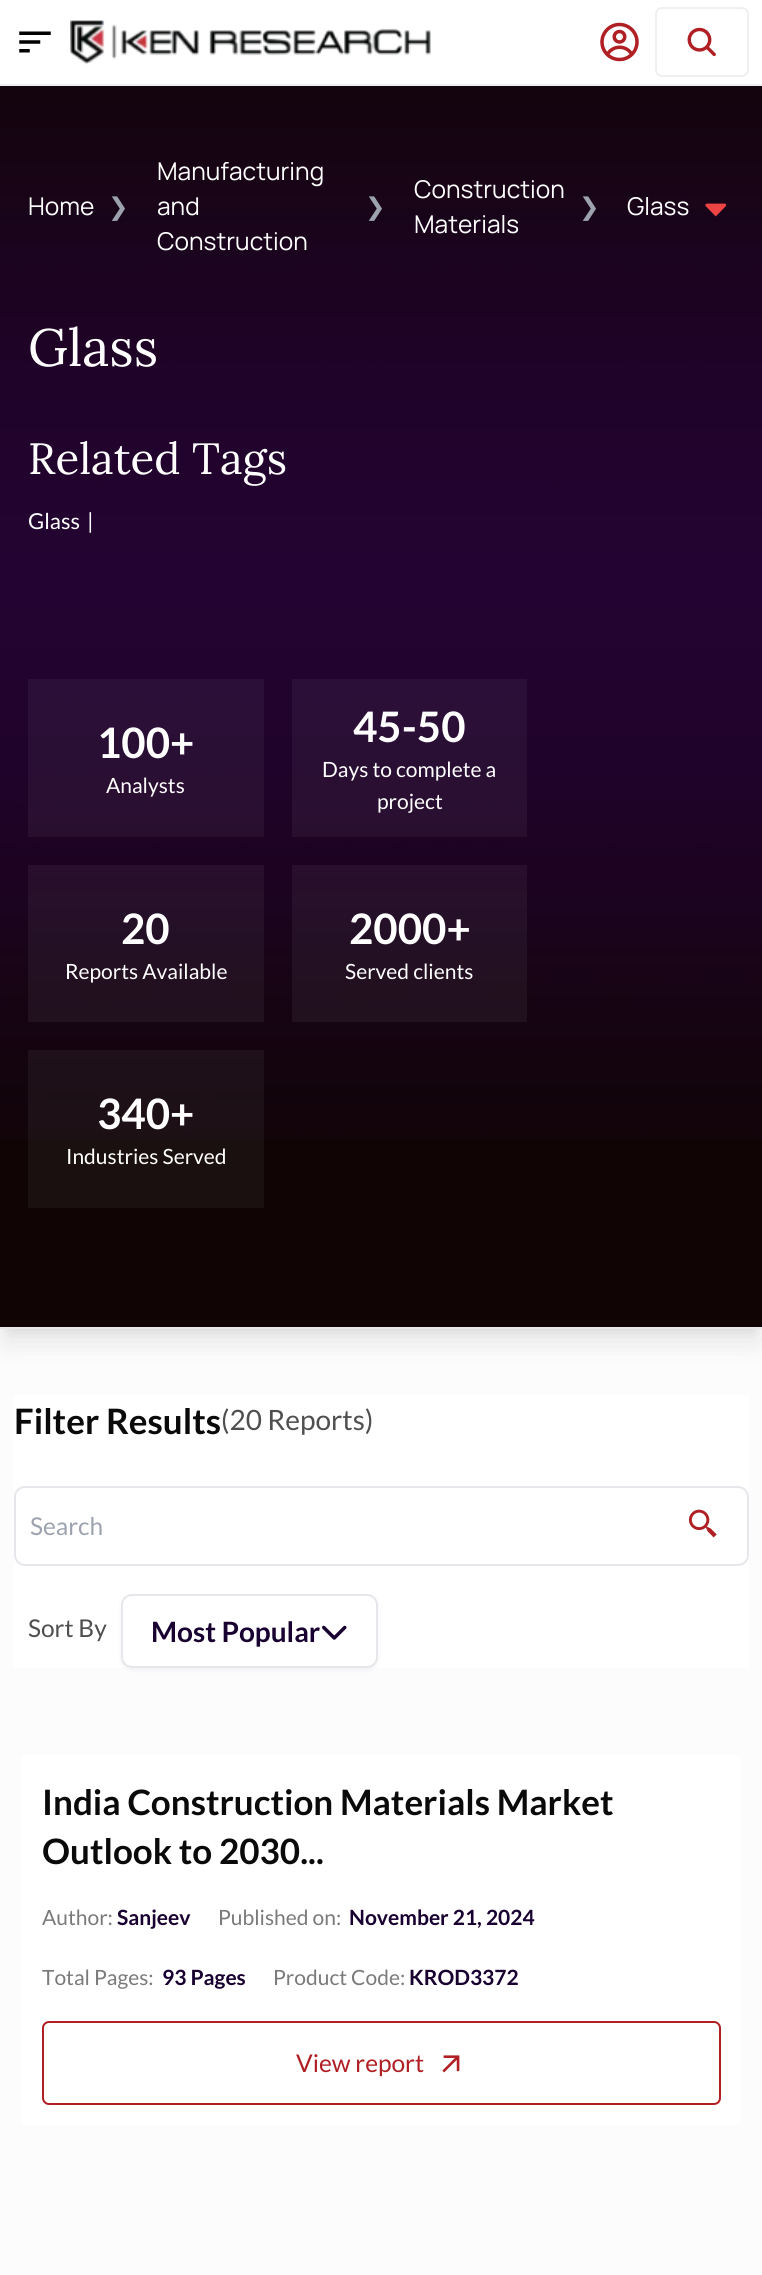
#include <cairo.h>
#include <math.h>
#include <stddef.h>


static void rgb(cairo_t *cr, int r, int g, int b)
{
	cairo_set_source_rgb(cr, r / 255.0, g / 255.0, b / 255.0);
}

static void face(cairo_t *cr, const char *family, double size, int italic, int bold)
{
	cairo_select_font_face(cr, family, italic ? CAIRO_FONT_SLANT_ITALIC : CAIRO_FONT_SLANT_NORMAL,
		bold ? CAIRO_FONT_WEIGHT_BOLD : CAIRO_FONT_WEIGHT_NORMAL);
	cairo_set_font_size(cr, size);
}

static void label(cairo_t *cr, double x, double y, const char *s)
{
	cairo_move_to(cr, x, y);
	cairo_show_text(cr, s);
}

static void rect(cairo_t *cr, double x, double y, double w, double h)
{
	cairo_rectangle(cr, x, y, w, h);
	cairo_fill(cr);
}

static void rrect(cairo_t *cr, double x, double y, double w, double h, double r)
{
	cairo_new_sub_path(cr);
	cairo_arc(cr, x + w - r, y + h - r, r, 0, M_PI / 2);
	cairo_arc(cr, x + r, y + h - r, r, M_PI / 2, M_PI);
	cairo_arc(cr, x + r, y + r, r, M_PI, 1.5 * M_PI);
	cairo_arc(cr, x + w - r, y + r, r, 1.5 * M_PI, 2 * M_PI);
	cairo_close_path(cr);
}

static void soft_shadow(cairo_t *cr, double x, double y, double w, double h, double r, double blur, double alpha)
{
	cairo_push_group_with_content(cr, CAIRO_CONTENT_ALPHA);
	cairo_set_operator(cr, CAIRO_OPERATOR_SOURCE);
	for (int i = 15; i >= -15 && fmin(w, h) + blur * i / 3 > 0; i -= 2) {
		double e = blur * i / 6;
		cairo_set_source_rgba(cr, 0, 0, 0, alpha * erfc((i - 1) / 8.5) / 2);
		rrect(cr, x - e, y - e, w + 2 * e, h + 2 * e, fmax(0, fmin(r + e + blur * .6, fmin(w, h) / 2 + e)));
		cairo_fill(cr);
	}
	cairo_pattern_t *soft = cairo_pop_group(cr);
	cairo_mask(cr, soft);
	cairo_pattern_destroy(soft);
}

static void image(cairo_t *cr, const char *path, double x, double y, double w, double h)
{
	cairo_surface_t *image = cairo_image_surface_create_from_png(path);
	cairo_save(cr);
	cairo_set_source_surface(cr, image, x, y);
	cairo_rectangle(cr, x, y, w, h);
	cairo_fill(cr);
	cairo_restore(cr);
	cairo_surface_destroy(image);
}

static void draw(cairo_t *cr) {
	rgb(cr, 252, 252, 252);
	cairo_paint(cr);
	rgb(cr, 0, 0, 0);
	soft_shadow(cr, 7, 49, 749, 1279, 0, 5, 0.1);
	soft_shadow(cr, 5, 58, 753, 1283, 0, 13, 0.1);
	rgb(cr, 255, 255, 255);
	rect(cr, 0, 0, 762, 84);
	rgb(cr, 239, 239, 239);
	rect(cr, 0, 84, 762, 2);
	image(cr, "image0.png", 19, 31, 32, 22);
	image(cr, "image1.png", 70, 20, 361, 45);
	image(cr, "image2.png", 600, 22, 39, 40);
	rrect(cr, 656, 8, 92, 68, 6);
	cairo_stroke(cr);
	image(cr, "image3.png", 687, 27, 29, 30);
	rgb(cr, 16, 4, 4);
	rect(cr, 0, 86, 762, 1241);
	rgb(cr, 229, 231, 235);
	rect(cr, 0, 1327, 762, 2);
	image(cr, "image4.png", 0, 86, 762, 1054);
	face(cr, "Manrope", 24.5, 0, 0);
	rgb(cr, 255, 255, 255);
	label(cr, 28, 215, "Home");
	face(cr, "DejaVu Sans", 24.5, 0, 0);
	rgb(cr, 156, 163, 175);
	label(cr, 108, 215, "❯");
	face(cr, "Manrope", 24.5, 0, 0);
	rgb(cr, 255, 255, 255);
	label(cr, 157, 180, "Manufacturing");
	label(cr, 157, 215, "and");
	label(cr, 157, 250, "Construction");
	face(cr, "DejaVu Sans", 24.5, 0, 0);
	rgb(cr, 156, 163, 175);
	label(cr, 365, 215, "❯");
	face(cr, "Manrope", 24.5, 0, 0);
	rgb(cr, 255, 255, 255);
	label(cr, 414, 198, "Construction");
	label(cr, 414, 233, "Materials");
	face(cr, "DejaVu Sans", 24.5, 0, 0);
	rgb(cr, 156, 163, 175);
	label(cr, 579, 215, "❯");
	face(cr, "Manrope", 24.5, 0, 0);
	rgb(cr, 255, 255, 255);
	label(cr, 627, 215, "Glass");
	image(cr, "image5.png", 705, 203, 22, 14);
	face(cr, "Lora", 52.5, 0, 0);
	label(cr, 28, 366, "Glass");
	face(cr, "Lora", 43.75, 0, 0);
	label(cr, 28, 474, "Related Tags");
	face(cr, "Lato", 22, 0, 0);
	label(cr, 28, 529, "Glass");
	label(cr, 87, 529, "|");
	cairo_set_source_rgba(cr, 1, 1, 1, 0.05);
	rect(cr, 28, 679, 236, 158);
	face(cr, "Lato", 42, 0, 1);
	rgb(cr, 255, 255, 255);
	label(cr, 97, 758, "100+");
	face(cr, "Lato", 21, 0, 0);
	label(cr, 106, 793, "Analysts");
	cairo_set_source_rgba(cr, 1, 1, 1, 0.05);
	rect(cr, 292, 679, 235, 158);
	face(cr, "Lato", 42, 0, 1);
	rgb(cr, 255, 255, 255);
	label(cr, 353, 742, "45-50");
	face(cr, "Lato", 21, 0, 0);
	label(cr, 322, 777, "Days to complete a");
	label(cr, 377, 809, "project");
	cairo_set_source_rgba(cr, 1, 1, 1, 0.05);
	rect(cr, 28, 865, 236, 157);
	face(cr, "Lato", 42, 0, 1);
	rgb(cr, 255, 255, 255);
	label(cr, 121, 944, "20");
	face(cr, "Lato", 21, 0, 0);
	label(cr, 65, 979, "Reports Available");
	cairo_set_source_rgba(cr, 1, 1, 1, 0.05);
	rect(cr, 292, 865, 235, 157);
	face(cr, "Lato", 42, 0, 1);
	rgb(cr, 255, 255, 255);
	label(cr, 349, 944, "2000+");
	face(cr, "Lato", 21, 0, 0);
	label(cr, 345, 979, "Served clients");
	cairo_set_source_rgba(cr, 1, 1, 1, 0.05);
	rect(cr, 28, 1050, 236, 158);
	face(cr, "Lato", 42, 0, 1);
	rgb(cr, 255, 255, 255);
	label(cr, 97, 1129, "340+");
	face(cr, "Lato", 21, 0, 0);
	label(cr, 66, 1164, "Industries Served");
	rgb(cr, 252, 252, 252);
	rect(cr, 22, 1356, 719, 1);
	rgb(cr, 255, 255, 255);
	rect(cr, 14, 1395, 735, 273);
	face(cr, "Lato", 35, 0, 1);
	rgb(cr, 10, 10, 10);
	label(cr, 14, 1434, "Filter Results");
	face(cr, "Lato", 28, 0, 0);
	rgb(cr, 79, 79, 79);
	label(cr, 221, 1430, "(20 Reports)");
	rrect(cr, 15, 1487, 733, 78, 10);
	rgb(cr, 229, 231, 235);
	cairo_stroke(cr);
	face(cr, "Lato", 24.5, 0, 0);
	rgb(cr, 156, 163, 175);
	label(cr, 30, 1535, "Search");
	image(cr, "image6.png", 688, 1509, 29, 29);
	rgb(cr, 79, 79, 79);
	label(cr, 28, 1637, "Sort By");
	rgb(cr, 0, 0, 0);
	soft_shadow(cr, 121, 1596, 257, 74, 11, 2, 0.05);
	rgb(cr, 255, 255, 255);
	rrect(cr, 122, 1595, 255, 72, 10);
	cairo_fill_preserve(cr);
	rgb(cr, 229, 231, 235);
	cairo_stroke(cr);
	face(cr, "Lato", 28, 0, 1);
	rgb(cr, 24, 0, 48);
	label(cr, 151, 1642, "Most Popular");
	image(cr, "image7.png", 322, 1625, 25, 15);
	rgb(cr, 255, 255, 255);
	rrect(cr, 21, 1755, 721, 371, 7);
	cairo_fill(cr);
	face(cr, "Lato", 35, 0, 1);
	rgb(cr, 10, 10, 10);
	label(cr, 42, 1815, "India Construction Materials Market");
	label(cr, 42, 1864, "Outlook to 2030...");
	face(cr, "Lato", 21, 0, 0);
	rgb(cr, 122, 122, 122);
	label(cr, 42, 1925, "Author:");
	face(cr, "Lato", 21, 0, 1);
	rgb(cr, 24, 0, 48);
	label(cr, 117, 1925, "Sanjeev");
	face(cr, "Lato", 21, 0, 0);
	rgb(cr, 122, 122, 122);
	label(cr, 218, 1925, "Published on:");
	face(cr, "Lato", 21, 0, 1);
	rgb(cr, 24, 0, 48);
	label(cr, 349, 1925, "November 21, 2024");
	face(cr, "Lato", 21, 0, 0);
	rgb(cr, 122, 122, 122);
	label(cr, 42, 1985, "Total Pages:");
	face(cr, "Lato", 21, 0, 1);
	rgb(cr, 24, 0, 48);
	label(cr, 162, 1985, "93 Pages");
	face(cr, "Lato", 21, 0, 0);
	rgb(cr, 122, 122, 122);
	label(cr, 273, 1985, "Product Code:");
	face(cr, "Lato", 21, 0, 1);
	rgb(cr, 24, 0, 48);
	label(cr, 409, 1985, "KROD3372");
	rrect(cr, 43, 2022, 677, 82, 6);
	rgb(cr, 176, 31, 36);
	cairo_stroke(cr);
	face(cr, "Lato", 24.5, 0, 0);
	label(cr, 296, 2072, "View report");
	image(cr, "image8.png", 442, 2055, 18, 18);
}

int main(void) {
	cairo_surface_t *surface = cairo_image_surface_create(CAIRO_FORMAT_RGB24, 762, 2275);
	cairo_t *cr = cairo_create(surface);
	cairo_font_options_t *options = cairo_font_options_create();
	cairo_font_options_set_hint_metrics(options, CAIRO_HINT_METRICS_OFF);
	cairo_font_options_set_hint_style(options, CAIRO_HINT_STYLE_NONE);
	cairo_set_font_options(cr, options);
	cairo_set_miter_limit(cr, 4);
	draw(cr);
	cairo_surface_write_to_png(surface, "render.png");
	cairo_font_options_destroy(options);
	cairo_destroy(cr);
	cairo_surface_destroy(surface);
	return 0;
}
